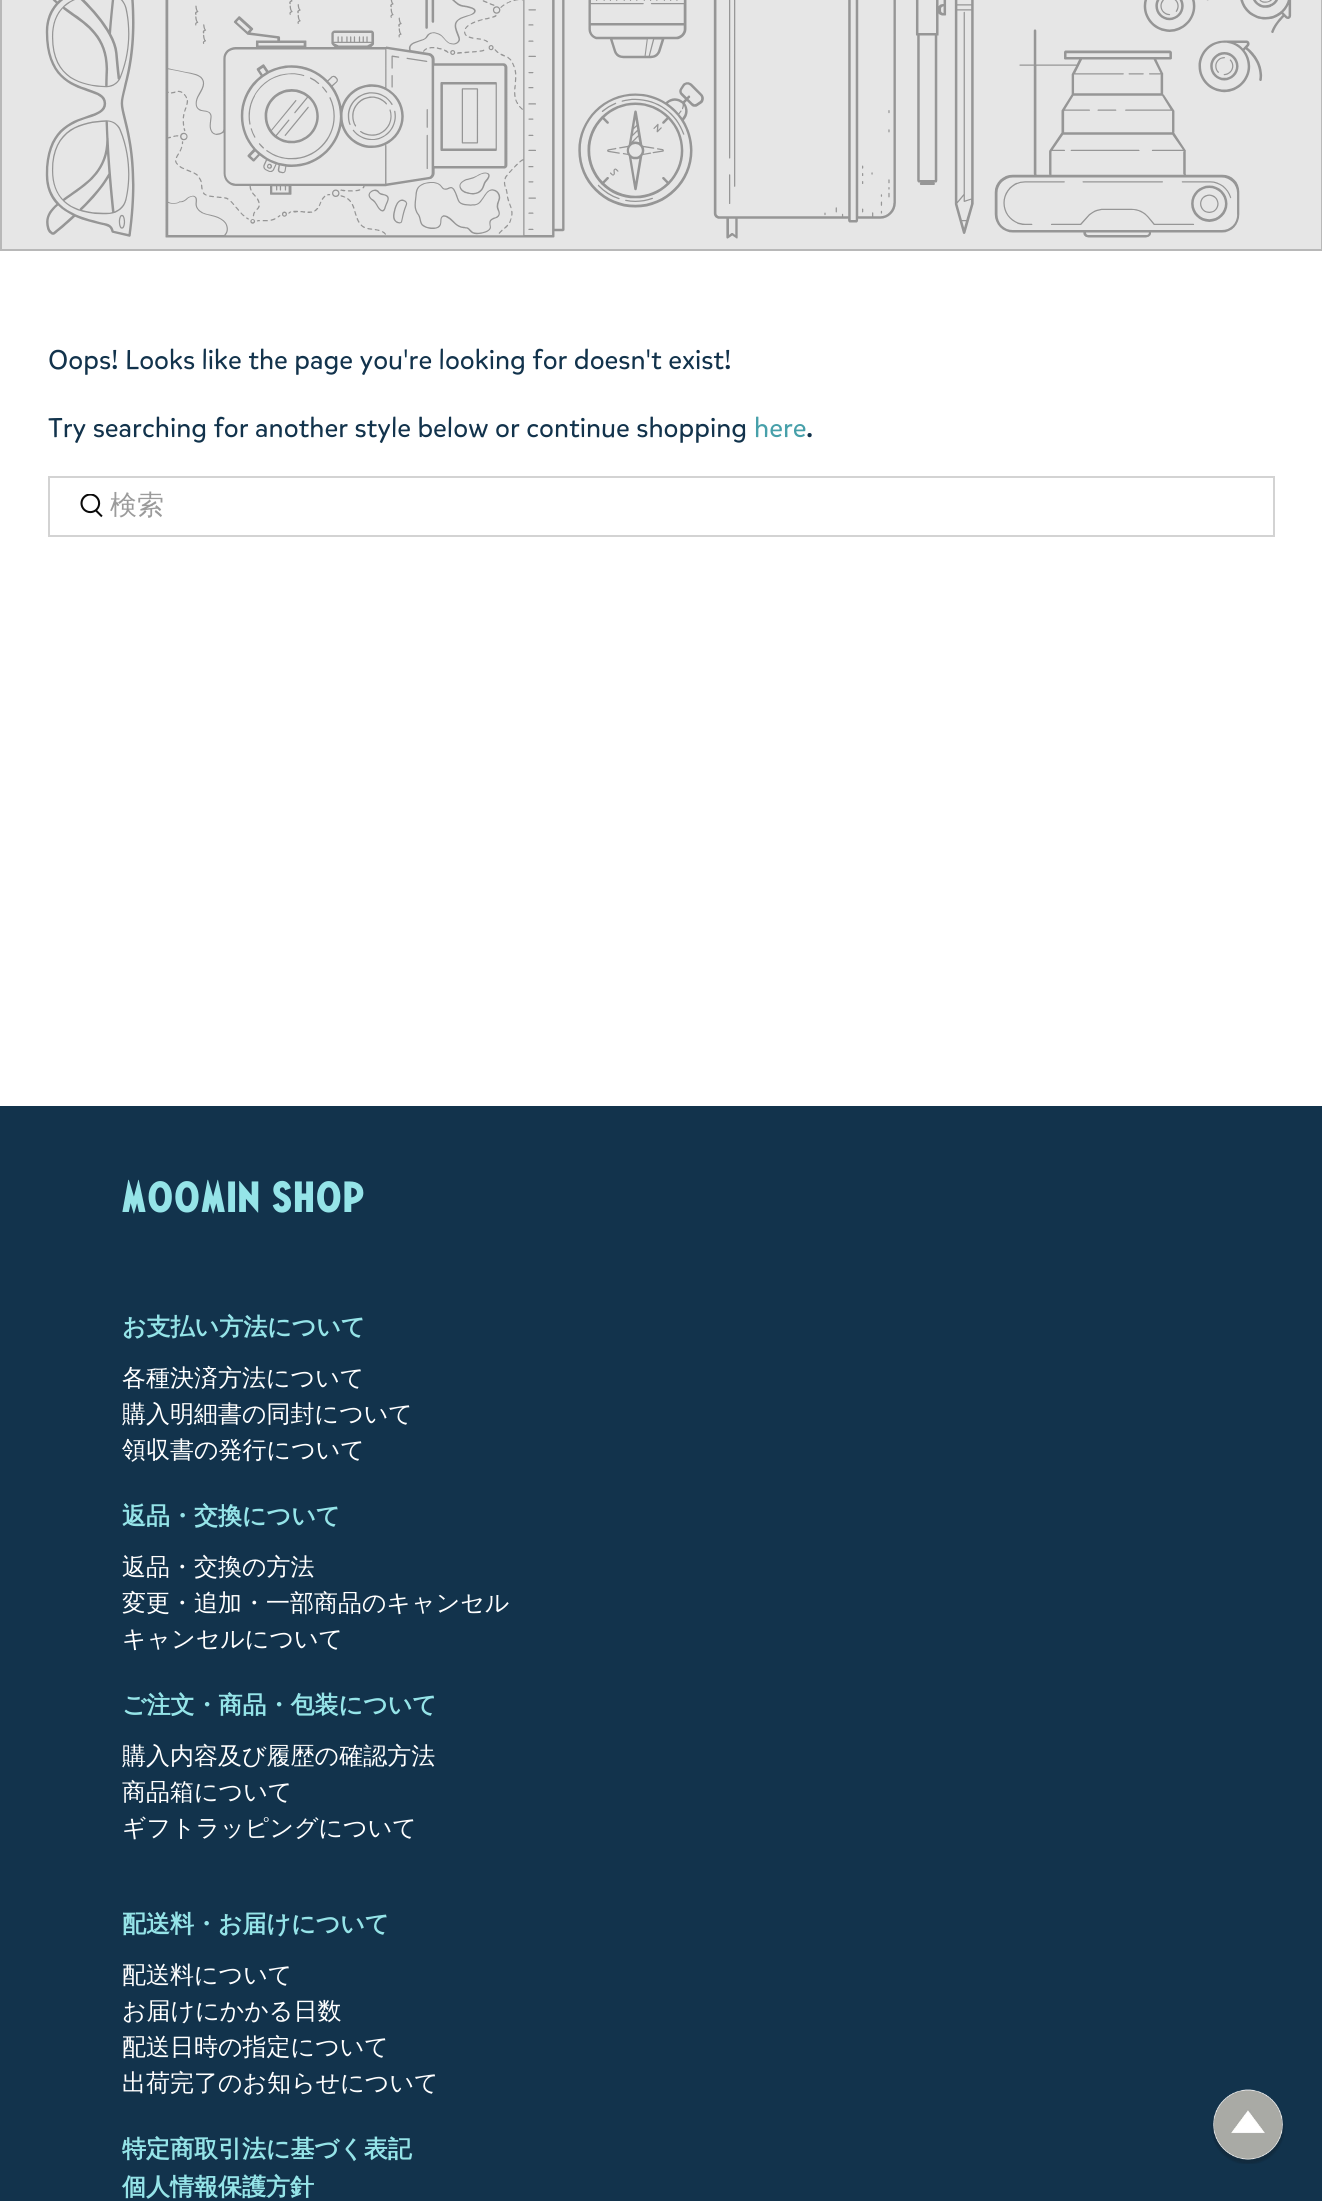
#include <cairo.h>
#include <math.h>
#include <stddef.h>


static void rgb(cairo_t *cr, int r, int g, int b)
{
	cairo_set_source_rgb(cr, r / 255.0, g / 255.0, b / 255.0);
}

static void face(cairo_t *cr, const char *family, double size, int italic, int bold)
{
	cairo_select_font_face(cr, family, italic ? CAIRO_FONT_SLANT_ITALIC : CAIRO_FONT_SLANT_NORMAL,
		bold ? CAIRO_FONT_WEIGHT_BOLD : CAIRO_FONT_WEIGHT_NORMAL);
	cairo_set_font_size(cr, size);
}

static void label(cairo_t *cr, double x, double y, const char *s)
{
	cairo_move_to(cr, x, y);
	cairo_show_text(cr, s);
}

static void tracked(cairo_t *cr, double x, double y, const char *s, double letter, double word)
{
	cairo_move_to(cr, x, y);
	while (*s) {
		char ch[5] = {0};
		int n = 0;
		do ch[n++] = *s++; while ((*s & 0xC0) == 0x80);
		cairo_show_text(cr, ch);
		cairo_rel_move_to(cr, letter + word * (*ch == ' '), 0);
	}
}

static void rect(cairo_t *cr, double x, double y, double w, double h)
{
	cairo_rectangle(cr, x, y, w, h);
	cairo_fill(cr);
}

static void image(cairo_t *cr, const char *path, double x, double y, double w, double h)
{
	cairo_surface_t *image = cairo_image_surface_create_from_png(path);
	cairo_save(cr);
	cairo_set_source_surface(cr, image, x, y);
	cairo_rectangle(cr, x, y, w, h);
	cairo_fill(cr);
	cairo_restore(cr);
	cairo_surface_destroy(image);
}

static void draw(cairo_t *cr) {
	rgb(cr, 255, 255, 255);
	cairo_paint(cr);
	rgb(cr, 230, 230, 230);
	cairo_rectangle(cr, 1, -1, 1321, 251);
	cairo_fill_preserve(cr);
	rgb(cr, 184, 184, 184);
	cairo_stroke(cr);
	image(cr, "image0.png", 45, 0, 1247, 239);
	face(cr, "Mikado", 27, 0, 0);
	rgb(cr, 18, 51, 76);
	label(cr, 48, 369, "Oops! Looks like the page you're looking for doesn't exist!");
	label(cr, 48, 437, "Try searching for another style below or continue shopping");
	rgb(cr, 71, 160, 170);
	label(cr, 754, 437, "here");
	rgb(cr, 18, 51, 76);
	label(cr, 806, 437, ".");
	cairo_rectangle(cr, 49, 477, 1225, 59);
	rgb(cr, 211, 211, 211);
	cairo_stroke(cr);
	image(cr, "image1.png", 80, 494, 23, 24);
	face(cr, "WenQuanYi Zen Hei Medium", 27, 0, 0);
	rgb(cr, 155, 155, 155);
	label(cr, 110, 514, "検索");
	rgb(cr, 18, 51, 76);
	rect(cr, 0, 1106, 1322, 1095);
	face(cr, "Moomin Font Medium", 36, 0, 0);
	rgb(cr, 149, 228, 232);
	tracked(cr, 122, 1212, "MOOMIN SHOP", 1.5, 0);
	face(cr, "WenQuanYi Zen Hei", 24, 0, 1);
	label(cr, 122, 1335, "お支払い方法について");
	face(cr, "WenQuanYi Zen Hei Medium", 24, 0, 0);
	rgb(cr, 255, 255, 255);
	label(cr, 122, 1386, "各種決済方法について");
	label(cr, 122, 1422, "購入明細書の同封について");
	label(cr, 122, 1458, "領収書の発行について");
	face(cr, "WenQuanYi Zen Hei", 24, 0, 1);
	rgb(cr, 149, 228, 232);
	label(cr, 122, 1524, "返品・交換について");
	face(cr, "WenQuanYi Zen Hei Medium", 24, 0, 0);
	rgb(cr, 255, 255, 255);
	label(cr, 122, 1575, "返品・交換の方法");
	label(cr, 122, 1611, "変更・追加・一部商品のキャンセル");
	label(cr, 122, 1647, "キャンセルについて");
	face(cr, "WenQuanYi Zen Hei", 24, 0, 1);
	rgb(cr, 149, 228, 232);
	label(cr, 122, 1713, "ご注文・商品・包装について");
	face(cr, "WenQuanYi Zen Hei Medium", 24, 0, 0);
	rgb(cr, 255, 255, 255);
	label(cr, 122, 1764, "購入内容及び履歴の確認方法");
	label(cr, 122, 1800, "商品箱について");
	label(cr, 122, 1836, "ギフトラッピングについて");
	face(cr, "WenQuanYi Zen Hei", 24, 0, 1);
	rgb(cr, 149, 228, 232);
	label(cr, 122, 1932, "配送料・お届けについて");
	face(cr, "WenQuanYi Zen Hei Medium", 24, 0, 0);
	rgb(cr, 255, 255, 255);
	label(cr, 122, 1983, "配送料について");
	label(cr, 122, 2019, "お届けにかかる日数");
	label(cr, 122, 2055, "配送日時の指定について");
	label(cr, 122, 2091, "出荷完了のお知らせについて");
	face(cr, "WenQuanYi Zen Hei", 24, 0, 1);
	rgb(cr, 149, 228, 232);
	label(cr, 122, 2157, "特定商取引法に基づく表記");
	label(cr, 122, 2195, "個人情報保護方針");
	image(cr, "image2.png", 1211, 2089, 74, 75);
}

int main(void) {
	cairo_surface_t *surface = cairo_image_surface_create(CAIRO_FORMAT_RGB24, 1322, 2201);
	cairo_t *cr = cairo_create(surface);
	cairo_font_options_t *options = cairo_font_options_create();
	cairo_font_options_set_hint_metrics(options, CAIRO_HINT_METRICS_OFF);
	cairo_font_options_set_hint_style(options, CAIRO_HINT_STYLE_NONE);
	cairo_set_font_options(cr, options);
	cairo_set_miter_limit(cr, 4);
	draw(cr);
	cairo_surface_write_to_png(surface, "render.png");
	cairo_font_options_destroy(options);
	cairo_destroy(cr);
	cairo_surface_destroy(surface);
	return 0;
}
